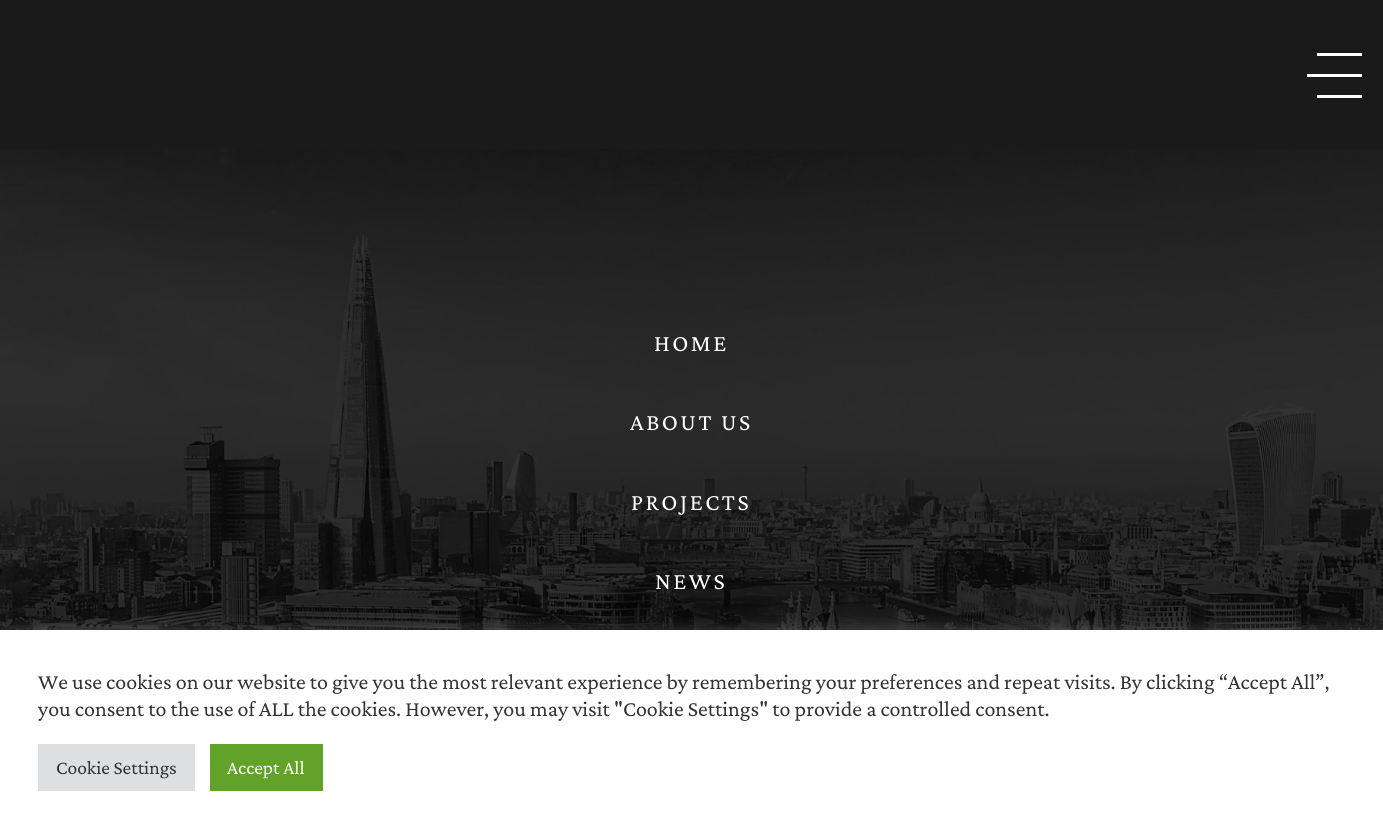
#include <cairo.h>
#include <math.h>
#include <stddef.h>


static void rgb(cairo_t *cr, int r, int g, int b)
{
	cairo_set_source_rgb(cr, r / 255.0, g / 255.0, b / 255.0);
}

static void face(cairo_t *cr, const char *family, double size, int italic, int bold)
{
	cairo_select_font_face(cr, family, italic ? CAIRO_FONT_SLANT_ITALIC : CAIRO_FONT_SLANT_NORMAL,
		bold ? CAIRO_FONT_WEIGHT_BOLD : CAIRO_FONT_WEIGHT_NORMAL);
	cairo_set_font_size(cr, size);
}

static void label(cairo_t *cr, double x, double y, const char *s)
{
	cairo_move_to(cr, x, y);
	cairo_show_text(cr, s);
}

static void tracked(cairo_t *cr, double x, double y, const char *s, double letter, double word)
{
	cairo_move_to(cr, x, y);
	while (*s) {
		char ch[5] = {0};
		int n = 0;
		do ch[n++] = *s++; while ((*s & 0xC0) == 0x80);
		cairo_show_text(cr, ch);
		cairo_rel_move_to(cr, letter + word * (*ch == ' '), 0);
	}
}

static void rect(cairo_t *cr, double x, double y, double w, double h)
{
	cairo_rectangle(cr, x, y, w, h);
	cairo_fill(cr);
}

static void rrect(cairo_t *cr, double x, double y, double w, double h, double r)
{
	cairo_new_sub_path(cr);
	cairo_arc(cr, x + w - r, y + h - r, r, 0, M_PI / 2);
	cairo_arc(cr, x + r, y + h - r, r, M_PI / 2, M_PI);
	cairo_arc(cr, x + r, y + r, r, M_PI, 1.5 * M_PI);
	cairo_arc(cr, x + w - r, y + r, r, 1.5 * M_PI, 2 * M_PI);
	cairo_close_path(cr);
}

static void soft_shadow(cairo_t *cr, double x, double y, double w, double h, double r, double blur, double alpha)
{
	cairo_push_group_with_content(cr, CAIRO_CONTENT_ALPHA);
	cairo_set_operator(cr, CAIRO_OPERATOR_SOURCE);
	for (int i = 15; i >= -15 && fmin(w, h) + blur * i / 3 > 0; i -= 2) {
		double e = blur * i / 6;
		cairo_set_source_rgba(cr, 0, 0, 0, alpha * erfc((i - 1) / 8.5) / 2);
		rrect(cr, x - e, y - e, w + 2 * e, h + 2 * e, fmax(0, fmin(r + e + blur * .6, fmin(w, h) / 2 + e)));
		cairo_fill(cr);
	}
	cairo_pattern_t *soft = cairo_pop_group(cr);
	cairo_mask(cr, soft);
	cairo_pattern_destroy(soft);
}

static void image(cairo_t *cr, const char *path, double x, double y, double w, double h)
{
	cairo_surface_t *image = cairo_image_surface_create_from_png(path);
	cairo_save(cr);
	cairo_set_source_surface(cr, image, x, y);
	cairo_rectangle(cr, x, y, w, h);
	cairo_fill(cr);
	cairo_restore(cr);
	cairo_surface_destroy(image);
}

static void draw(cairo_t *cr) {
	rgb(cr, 255, 255, 255);
	cairo_paint(cr);
	rgb(cr, 26, 26, 26);
	rect(cr, 0, 0, 1383, 149);
	rgb(cr, 255, 255, 255);
	rect(cr, 1317, 53, 45, 3);
	rect(cr, 1307, 74, 55, 3);
	rect(cr, 1317, 95, 45, 3);
	image(cr, "image0.png", 0, 149, 1383, 481);
	face(cr, "Crimson Pro", 24, 0, 0);
	tracked(cr, 654, 351, "HOME", 2.5, 0);
	tracked(cr, 630, 430, "ABOUT US", 2.5, 0);
	tracked(cr, 631, 510, "PROJECTS", 2.5, 0);
	tracked(cr, 655, 589, "NEWS", 2.5, 0);
	rgb(cr, 172, 171, 171);
	soft_shadow(cr, 0, 629, 1383, 205, 0, 7.5, 0.3);
	rgb(cr, 255, 255, 255);
	rect(cr, 0, 630, 1383, 205);
	face(cr, "Crimson Pro", 22, 0, 0);
	rgb(cr, 51, 51, 51);
	label(cr, 38, 689, "We use cookies on our website to give you the most relevant experience by remembering your preferences and repeat visits. By clicking “Accept All”,");
	label(cr, 38, 716, "you consent to the use of ALL the cookies. However, you may visit \"Cookie Settings\" to provide a controlled consent.");
	rgb(cr, 222, 223, 224);
	rect(cr, 38, 744, 157, 47);
	face(cr, "Crimson Pro", 19.5, 0, 0);
	rgb(cr, 51, 51, 51);
	label(cr, 56, 774, "Cookie Settings");
	rgb(cr, 97, 162, 41);
	rect(cr, 210, 744, 113, 47);
	rgb(cr, 255, 255, 255);
	label(cr, 227, 774, "Accept All");
}

int main(void) {
	cairo_surface_t *surface = cairo_image_surface_create(CAIRO_FORMAT_RGB24, 1383, 835);
	cairo_t *cr = cairo_create(surface);
	cairo_font_options_t *options = cairo_font_options_create();
	cairo_font_options_set_hint_metrics(options, CAIRO_HINT_METRICS_OFF);
	cairo_font_options_set_hint_style(options, CAIRO_HINT_STYLE_NONE);
	cairo_set_font_options(cr, options);
	cairo_set_miter_limit(cr, 4);
	draw(cr);
	cairo_surface_write_to_png(surface, "render.png");
	cairo_font_options_destroy(options);
	cairo_destroy(cr);
	cairo_surface_destroy(surface);
	return 0;
}
